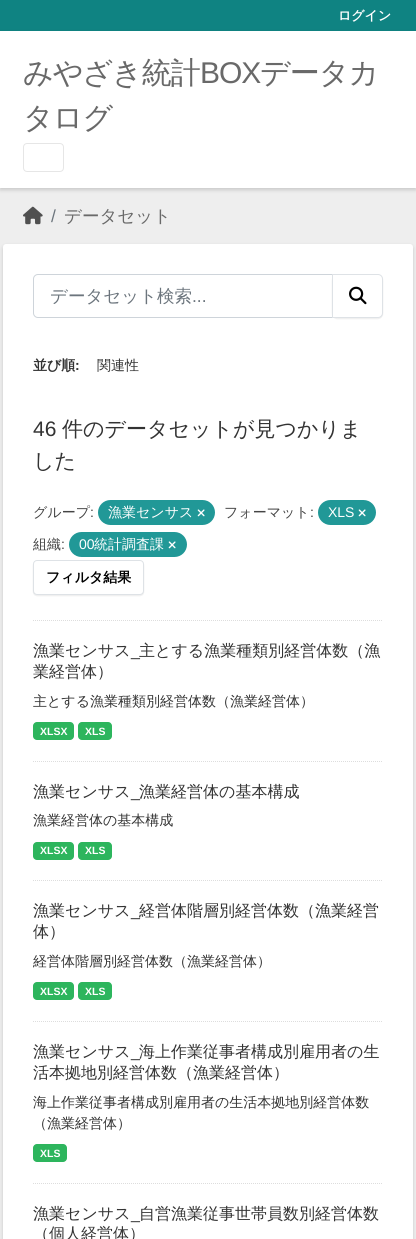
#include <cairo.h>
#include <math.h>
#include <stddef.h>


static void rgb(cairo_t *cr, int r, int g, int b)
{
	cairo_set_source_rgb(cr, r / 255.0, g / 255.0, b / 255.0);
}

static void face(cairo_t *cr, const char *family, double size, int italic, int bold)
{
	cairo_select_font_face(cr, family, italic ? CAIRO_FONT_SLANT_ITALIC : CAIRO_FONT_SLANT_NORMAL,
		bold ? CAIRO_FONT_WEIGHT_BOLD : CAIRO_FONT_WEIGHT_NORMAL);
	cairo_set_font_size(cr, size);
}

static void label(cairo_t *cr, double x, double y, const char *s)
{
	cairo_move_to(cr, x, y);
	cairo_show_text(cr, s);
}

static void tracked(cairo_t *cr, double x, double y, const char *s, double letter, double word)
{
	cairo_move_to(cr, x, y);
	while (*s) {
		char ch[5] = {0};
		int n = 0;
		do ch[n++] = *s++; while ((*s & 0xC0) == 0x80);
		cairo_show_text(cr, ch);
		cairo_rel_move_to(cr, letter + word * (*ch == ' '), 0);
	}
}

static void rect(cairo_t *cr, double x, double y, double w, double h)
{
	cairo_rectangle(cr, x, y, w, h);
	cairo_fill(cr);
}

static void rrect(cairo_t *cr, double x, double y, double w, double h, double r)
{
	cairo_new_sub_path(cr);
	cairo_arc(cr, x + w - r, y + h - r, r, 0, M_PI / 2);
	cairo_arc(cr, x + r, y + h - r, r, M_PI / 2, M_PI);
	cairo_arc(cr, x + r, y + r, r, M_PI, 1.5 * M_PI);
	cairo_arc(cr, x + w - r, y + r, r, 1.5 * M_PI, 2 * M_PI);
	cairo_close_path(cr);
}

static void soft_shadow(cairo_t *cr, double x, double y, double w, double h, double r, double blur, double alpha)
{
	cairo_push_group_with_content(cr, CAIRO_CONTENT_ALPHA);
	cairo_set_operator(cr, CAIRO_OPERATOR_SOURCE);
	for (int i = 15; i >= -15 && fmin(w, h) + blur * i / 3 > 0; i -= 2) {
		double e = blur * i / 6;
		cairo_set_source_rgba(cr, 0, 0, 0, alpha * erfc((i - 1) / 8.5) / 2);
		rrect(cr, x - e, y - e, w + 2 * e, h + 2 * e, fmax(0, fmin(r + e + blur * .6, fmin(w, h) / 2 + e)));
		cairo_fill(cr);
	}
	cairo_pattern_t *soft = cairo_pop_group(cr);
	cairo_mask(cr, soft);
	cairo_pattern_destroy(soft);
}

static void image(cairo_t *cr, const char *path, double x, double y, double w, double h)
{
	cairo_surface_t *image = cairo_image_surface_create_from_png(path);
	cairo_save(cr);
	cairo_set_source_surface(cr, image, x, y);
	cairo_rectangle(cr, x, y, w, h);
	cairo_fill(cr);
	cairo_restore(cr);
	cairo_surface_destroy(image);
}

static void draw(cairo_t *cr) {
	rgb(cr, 15, 131, 130);
	cairo_paint(cr);
	face(cr, "WenQuanYi Zen Hei", 13, 0, 1);
	rgb(cr, 255, 255, 255);
	label(cr, 338, 20, "ログイン");
	rgb(cr, 238, 238, 238);
	rect(cr, 0, 188, 416, 1051);
	rgb(cr, 0, 0, 0);
	soft_shadow(cr, 0, 33, 416, 157, 0, 2, 0.16);
	rgb(cr, 255, 255, 255);
	rect(cr, 0, 31, 416, 157);
	face(cr, "WenQuanYi Zen Hei Medium", 30, 0, 0);
	rgb(cr, 105, 105, 105);
	tracked(cr, 23, 83, "みやざき統計", -1, 0);
	face(cr, "Liberation Sans", 30, 0, 0);
	tracked(cr, 200, 83, "BOX", -1, 0);
	face(cr, "WenQuanYi Zen Hei Medium", 30, 0, 0);
	tracked(cr, 260, 83, "データカ", -1, 0);
	tracked(cr, 23, 128, "タログ", -1, 0);
	rrect(cr, 23.5, 143.5, 40, 28, 3.5);
	rgb(cr, 230, 230, 230);
	cairo_set_line_width(cr, 1);
	cairo_stroke(cr);
	image(cr, "image0.png", 23, 206, 20, 19);
	face(cr, "Liberation Sans", 17.5, 0, 0);
	rgb(cr, 108, 117, 125);
	label(cr, 51, 222, "/");
	face(cr, "WenQuanYi Zen Hei Medium", 17.5, 0, 0);
	rgb(cr, 105, 105, 105);
	label(cr, 64, 222, "データセット");
	rgb(cr, 0, 0, 0);
	soft_shadow(cr, 3, 246, 410, 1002, 3, 2, 0.16);
	rgb(cr, 255, 255, 255);
	rrect(cr, 3, 244, 410, 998, 3);
	cairo_fill(cr);
	cairo_new_path(cr);
	cairo_move_to(cr, 33, 620.5);
	cairo_line_to(cr, 383, 620.5);
	rgb(cr, 221, 221, 221);
	cairo_set_dash(cr, (double[]){1, 1}, 2, 0);
	cairo_stroke(cr);
	cairo_new_path(cr);
	cairo_move_to(cr, 38, 274.5);
	cairo_line_to(cr, 332.5, 274.5);
	cairo_line_to(cr, 332.5, 317.5);
	cairo_line_to(cr, 38, 317.5);
	cairo_curve_to(cr, 35.5, 317.5, 33.5, 315.5, 33.5, 313);
	cairo_line_to(cr, 33.5, 279);
	cairo_curve_to(cr, 33.5, 276.5, 35.5, 274.5, 38, 274.5);
	cairo_close_path(cr);
	rgb(cr, 206, 212, 218);
	cairo_set_dash(cr, NULL, 0, 0);
	cairo_stroke(cr);
	rgb(cr, 108, 117, 125);
	label(cr, 50, 302, "データセット検索");
	face(cr, "Liberation Sans", 17.5, 0, 0);
	label(cr, 192, 302, "...");
	rgb(cr, 0, 0, 0);
	soft_shadow(cr, 332, 275, 51, 44, 5, 0.5, 0.07);
	rgb(cr, 255, 255, 255);
	cairo_new_path(cr);
	cairo_move_to(cr, 332.5, 274.5);
	cairo_line_to(cr, 378, 274.5);
	cairo_curve_to(cr, 380.5, 274.5, 382.5, 276.5, 382.5, 279);
	cairo_line_to(cr, 382.5, 313);
	cairo_curve_to(cr, 382.5, 315.5, 380.5, 317.5, 378, 317.5);
	cairo_line_to(cr, 332.5, 317.5);
	cairo_close_path(cr);
	cairo_fill_preserve(cr);
	rgb(cr, 222, 226, 230);
	cairo_stroke(cr);
	image(cr, "image1.png", 349, 286, 18, 19);
	face(cr, "WenQuanYi Zen Hei", 14, 0, 1);
	rgb(cr, 51, 51, 51);
	label(cr, 33, 370, "並び順");
	face(cr, "Liberation Sans", 14, 0, 1);
	label(cr, 75, 370, ":");
	face(cr, "WenQuanYi Zen Hei Medium", 14, 0, 0);
	label(cr, 97, 370, "関連性");
	face(cr, "Liberation Sans", 21, 0, 0);
	label(cr, 33, 436, "46");
	face(cr, "WenQuanYi Zen Hei Medium", 21, 0, 0);
	label(cr, 62, 436, "件のデータセットが見つかりま");
	label(cr, 33, 468, "した");
	face(cr, "WenQuanYi Zen Hei Medium", 14, 0, 0);
	rgb(cr, 68, 68, 68);
	label(cr, 33, 517, "グループ");
	face(cr, "Liberation Sans", 14, 0, 0);
	label(cr, 90, 517, ":");
	rgb(cr, 33, 152, 151);
	rrect(cr, 98, 500, 117, 25, 12.5);
	cairo_fill(cr);
	face(cr, "WenQuanYi Zen Hei Medium", 14, 0, 0);
	rgb(cr, 255, 255, 255);
	label(cr, 108, 517, "漁業センサス");
	image(cr, "image2.png", 197, 509, 8, 8);
	rgb(cr, 68, 68, 68);
	label(cr, 224, 517, "フォーマット");
	face(cr, "Liberation Sans", 14, 0, 0);
	label(cr, 310, 517, ":");
	rgb(cr, 33, 152, 151);
	rrect(cr, 318, 500, 58, 25, 12.5);
	cairo_fill(cr);
	rgb(cr, 255, 255, 255);
	label(cr, 328, 517, "XLS");
	image(cr, "image2.png", 358, 509, 8, 8);
	face(cr, "WenQuanYi Zen Hei Medium", 14, 0, 0);
	rgb(cr, 68, 68, 68);
	label(cr, 33, 549, "組織");
	face(cr, "Liberation Sans", 14, 0, 0);
	label(cr, 61, 549, ":");
	rgb(cr, 33, 152, 151);
	rrect(cr, 69, 532, 118, 25, 12.5);
	cairo_fill(cr);
	rgb(cr, 255, 255, 255);
	label(cr, 79, 549, "00");
	face(cr, "WenQuanYi Zen Hei Medium", 14, 0, 0);
	label(cr, 94, 549, "統計調査課");
	image(cr, "image2.png", 168, 541, 8, 8);
	rgb(cr, 0, 0, 0);
	soft_shadow(cr, 33, 561, 111, 35, 4, 0.5, 0.07);
	rgb(cr, 255, 255, 255);
	rrect(cr, 33.5, 560.5, 110, 34, 3.5);
	cairo_fill_preserve(cr);
	rgb(cr, 222, 226, 230);
	cairo_stroke(cr);
	face(cr, "WenQuanYi Zen Hei", 14, 0, 1);
	rgb(cr, 0, 0, 0);
	label(cr, 46, 582, "フィルタ結果");
	cairo_new_path(cr);
	cairo_move_to(cr, 33, 761.5);
	cairo_line_to(cr, 383, 761.5);
	rgb(cr, 221, 221, 221);
	cairo_set_dash(cr, (double[]){1, 1}, 2, 0);
	cairo_stroke(cr);
	face(cr, "WenQuanYi Zen Hei Medium", 16, 0, 0);
	rgb(cr, 51, 51, 51);
	label(cr, 33, 656, "漁業センサス");
	face(cr, "Liberation Sans", 16, 0, 0);
	label(cr, 131, 656, "_");
	face(cr, "WenQuanYi Zen Hei Medium", 16, 0, 0);
	label(cr, 139, 656, "主とする漁業種類別経営体数（漁");
	label(cr, 33, 677, "業経営体）");
	face(cr, "WenQuanYi Zen Hei Medium", 14, 0, 0);
	label(cr, 33, 706, "主とする漁業種類別経営体数（漁業経営体）");
	rgb(cr, 45, 181, 93);
	rrect(cr, 33, 722, 41, 18, 4);
	cairo_fill(cr);
	face(cr, "Liberation Sans", 10.5, 0, 1);
	rgb(cr, 255, 255, 255);
	label(cr, 40, 735, "XLSX");
	rgb(cr, 45, 181, 93);
	rrect(cr, 78, 722, 34, 18, 4);
	cairo_fill(cr);
	rgb(cr, 255, 255, 255);
	label(cr, 85, 735, "XLS");
	cairo_new_path(cr);
	cairo_move_to(cr, 33, 880.5);
	cairo_line_to(cr, 383, 880.5);
	rgb(cr, 221, 221, 221);
	cairo_stroke(cr);
	face(cr, "WenQuanYi Zen Hei Medium", 16, 0, 0);
	rgb(cr, 51, 51, 51);
	label(cr, 33, 797, "漁業センサス");
	face(cr, "Liberation Sans", 16, 0, 0);
	label(cr, 131, 797, "_");
	face(cr, "WenQuanYi Zen Hei Medium", 16, 0, 0);
	label(cr, 139, 797, "漁業経営体の基本構成");
	face(cr, "WenQuanYi Zen Hei Medium", 14, 0, 0);
	label(cr, 33, 825, "漁業経営体の基本構成");
	rgb(cr, 45, 181, 93);
	rrect(cr, 33, 842, 41, 18, 4);
	cairo_fill(cr);
	face(cr, "Liberation Sans", 10.5, 0, 1);
	rgb(cr, 255, 255, 255);
	label(cr, 40, 854, "XLSX");
	rgb(cr, 45, 181, 93);
	rrect(cr, 78, 842, 34, 18, 4);
	cairo_fill(cr);
	rgb(cr, 255, 255, 255);
	label(cr, 85, 854, "XLS");
	cairo_new_path(cr);
	cairo_move_to(cr, 33, 1021.5);
	cairo_line_to(cr, 383, 1021.5);
	rgb(cr, 221, 221, 221);
	cairo_stroke(cr);
	face(cr, "WenQuanYi Zen Hei Medium", 16, 0, 0);
	rgb(cr, 51, 51, 51);
	label(cr, 33, 916, "漁業センサス");
	face(cr, "Liberation Sans", 16, 0, 0);
	label(cr, 131, 916, "_");
	face(cr, "WenQuanYi Zen Hei Medium", 16, 0, 0);
	label(cr, 139, 916, "経営体階層別経営体数（漁業経営");
	label(cr, 33, 937, "体）");
	face(cr, "WenQuanYi Zen Hei Medium", 14, 0, 0);
	label(cr, 33, 966, "経営体階層別経営体数（漁業経営体）");
	rgb(cr, 45, 181, 93);
	rrect(cr, 33, 982, 41, 18, 4);
	cairo_fill(cr);
	face(cr, "Liberation Sans", 10.5, 0, 1);
	rgb(cr, 255, 255, 255);
	label(cr, 40, 995, "XLSX");
	rgb(cr, 45, 181, 93);
	rrect(cr, 78, 982, 34, 18, 4);
	cairo_fill(cr);
	rgb(cr, 255, 255, 255);
	label(cr, 85, 995, "XLS");
	cairo_new_path(cr);
	cairo_move_to(cr, 33, 1183.5);
	cairo_line_to(cr, 383, 1183.5);
	rgb(cr, 221, 221, 221);
	cairo_stroke(cr);
	face(cr, "WenQuanYi Zen Hei Medium", 16, 0, 0);
	rgb(cr, 51, 51, 51);
	label(cr, 33, 1057, "漁業センサス");
	face(cr, "Liberation Sans", 16, 0, 0);
	label(cr, 131, 1057, "_");
	face(cr, "WenQuanYi Zen Hei Medium", 16, 0, 0);
	label(cr, 139, 1057, "海上作業従事者構成別雇用者の生");
	label(cr, 33, 1078, "活本拠地別経営体数（漁業経営体）");
	face(cr, "WenQuanYi Zen Hei Medium", 14, 0, 0);
	label(cr, 33, 1107, "海上作業従事者構成別雇用者の生活本拠地別経営体数");
	label(cr, 33, 1128, "（漁業経営体）");
	rgb(cr, 45, 181, 93);
	rrect(cr, 33, 1144, 34, 18, 4);
	cairo_fill(cr);
	face(cr, "Liberation Sans", 10.5, 0, 1);
	rgb(cr, 255, 255, 255);
	label(cr, 40, 1157, "XLS");
	face(cr, "WenQuanYi Zen Hei Medium", 16, 0, 0);
	rgb(cr, 51, 51, 51);
	label(cr, 33, 1219, "漁業センサス");
	face(cr, "Liberation Sans", 16, 0, 0);
	label(cr, 131, 1219, "_");
	face(cr, "WenQuanYi Zen Hei Medium", 16, 0, 0);
	label(cr, 139, 1219, "自営漁業従事世帯員数別経営体数");
	label(cr, 33, 1239, "（個人経営体）");
}

int main(void) {
	cairo_surface_t *surface = cairo_image_surface_create(CAIRO_FORMAT_RGB24, 416, 1239);
	cairo_t *cr = cairo_create(surface);
	cairo_font_options_t *options = cairo_font_options_create();
	cairo_font_options_set_hint_metrics(options, CAIRO_HINT_METRICS_OFF);
	cairo_font_options_set_hint_style(options, CAIRO_HINT_STYLE_NONE);
	cairo_set_font_options(cr, options);
	cairo_set_miter_limit(cr, 4);
	draw(cr);
	cairo_surface_write_to_png(surface, "render.png");
	cairo_font_options_destroy(options);
	cairo_destroy(cr);
	cairo_surface_destroy(surface);
	return 0;
}
